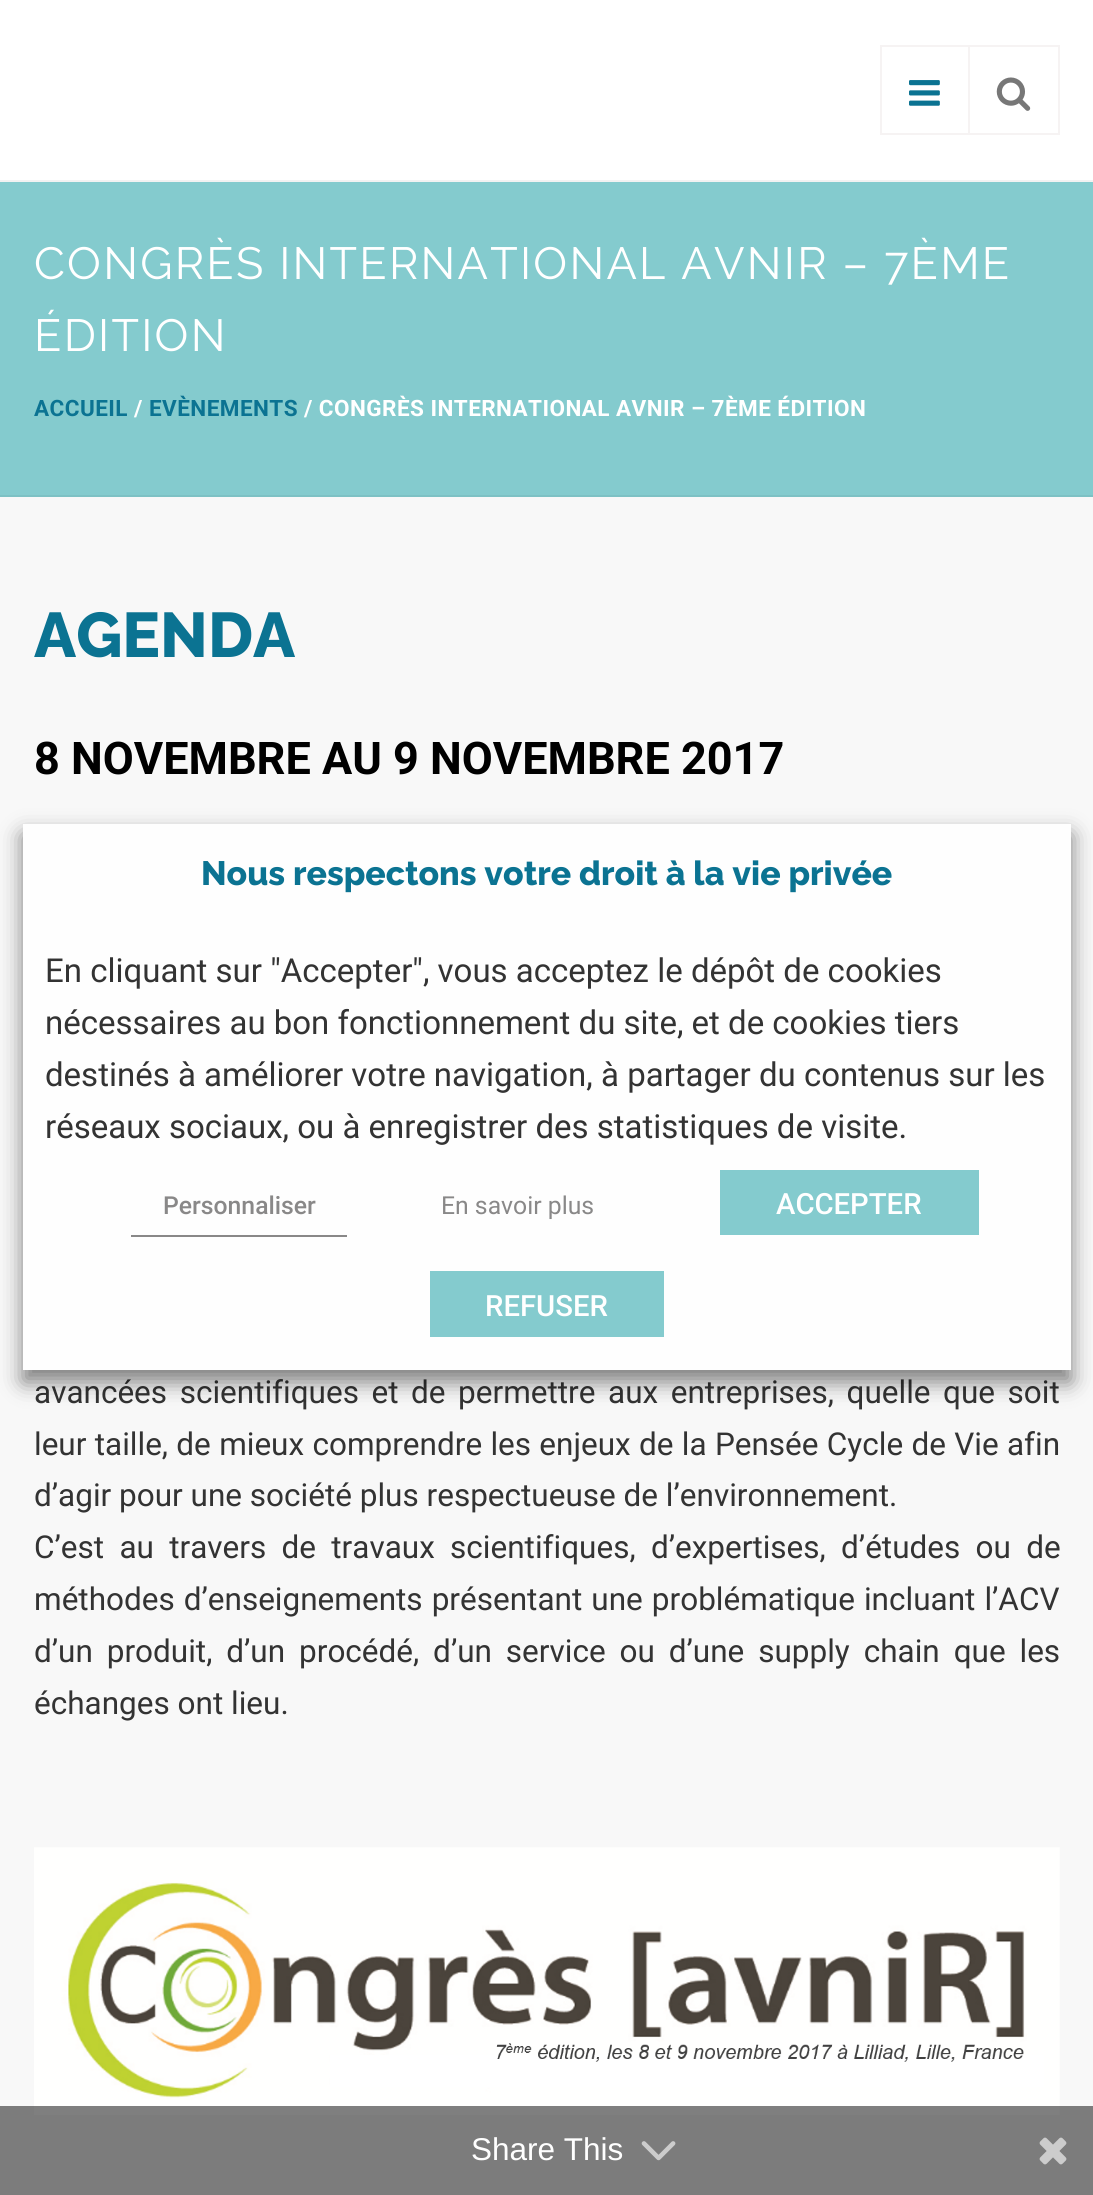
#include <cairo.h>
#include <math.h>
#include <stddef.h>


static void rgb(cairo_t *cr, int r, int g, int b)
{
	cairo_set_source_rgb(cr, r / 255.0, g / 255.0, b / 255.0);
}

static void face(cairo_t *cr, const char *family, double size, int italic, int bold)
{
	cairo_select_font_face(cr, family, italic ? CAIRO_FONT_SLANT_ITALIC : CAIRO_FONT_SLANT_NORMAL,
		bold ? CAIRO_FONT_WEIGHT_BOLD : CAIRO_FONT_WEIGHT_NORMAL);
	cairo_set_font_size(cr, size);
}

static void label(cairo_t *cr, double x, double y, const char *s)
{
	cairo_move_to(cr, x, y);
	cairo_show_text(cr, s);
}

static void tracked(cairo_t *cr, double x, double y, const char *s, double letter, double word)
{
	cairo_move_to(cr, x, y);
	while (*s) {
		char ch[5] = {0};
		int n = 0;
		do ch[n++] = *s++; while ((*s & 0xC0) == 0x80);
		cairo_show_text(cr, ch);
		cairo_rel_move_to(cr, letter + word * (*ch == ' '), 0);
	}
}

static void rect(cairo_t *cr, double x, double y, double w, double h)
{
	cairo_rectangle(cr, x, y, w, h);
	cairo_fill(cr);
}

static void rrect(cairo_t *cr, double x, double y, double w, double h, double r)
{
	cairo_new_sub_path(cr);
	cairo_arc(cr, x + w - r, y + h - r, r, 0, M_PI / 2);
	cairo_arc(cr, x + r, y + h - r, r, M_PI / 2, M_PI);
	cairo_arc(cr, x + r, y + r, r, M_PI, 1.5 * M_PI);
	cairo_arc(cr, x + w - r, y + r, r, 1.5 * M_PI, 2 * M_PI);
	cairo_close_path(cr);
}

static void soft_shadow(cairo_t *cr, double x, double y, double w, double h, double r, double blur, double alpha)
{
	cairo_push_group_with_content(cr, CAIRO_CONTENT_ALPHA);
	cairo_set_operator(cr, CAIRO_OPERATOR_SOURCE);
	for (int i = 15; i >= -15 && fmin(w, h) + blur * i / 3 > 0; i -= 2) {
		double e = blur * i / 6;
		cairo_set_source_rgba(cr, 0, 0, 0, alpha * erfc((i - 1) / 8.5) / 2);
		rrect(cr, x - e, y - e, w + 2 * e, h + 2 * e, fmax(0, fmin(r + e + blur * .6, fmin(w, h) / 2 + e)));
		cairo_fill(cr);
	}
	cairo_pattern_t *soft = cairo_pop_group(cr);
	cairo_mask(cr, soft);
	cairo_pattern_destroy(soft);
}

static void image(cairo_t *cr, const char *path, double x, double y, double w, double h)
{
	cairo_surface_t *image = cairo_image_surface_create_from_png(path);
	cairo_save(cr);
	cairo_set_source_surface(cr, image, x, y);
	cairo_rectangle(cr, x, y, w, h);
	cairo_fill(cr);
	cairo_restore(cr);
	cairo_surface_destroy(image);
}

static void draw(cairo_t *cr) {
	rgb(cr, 248, 248, 248);
	cairo_paint(cr);
	rgb(cr, 255, 255, 255);
	rect(cr, 0, 0, 1093, 180);
	rgb(cr, 242, 242, 242);
	rect(cr, 0, 180, 1093, 2);
	cairo_rectangle(cr, 881, 46, 88, 88);
	rgb(cr, 246, 243, 243);
	cairo_stroke(cr);
	image(cr, "image0.png", 909, 80, 31, 26);
	rect(cr, 970, 45, 90, 2);
	rect(cr, 1058, 45, 2, 90);
	rect(cr, 970, 133, 90, 2);
	image(cr, "image1.png", 996, 77, 35, 34);
	rgb(cr, 132, 203, 206);
	rect(cr, 0, 182, 1093, 313);
	rgb(cr, 125, 193, 196);
	rect(cr, 0, 495, 1093, 2);
	face(cr, "Raleway", 45, 0, 0);
	rgb(cr, 255, 255, 255);
	tracked(cr, 34, 279, "CONGRÈS INTERNATIONAL AVNIR – 7ÈME", 2.25, 0);
	tracked(cr, 34, 351, "ÉDITION", 2.25, 0);
	face(cr, "Roboto", 22.5, 0, 1);
	rgb(cr, 11, 115, 146);
	tracked(cr, 34, 416, "ACCUEIL", 0.45, 0);
	rgb(cr, 255, 255, 255);
	tracked(cr, 134, 416, "/", 0.45, 0);
	rgb(cr, 11, 115, 146);
	tracked(cr, 149, 416, "EVÈNEMENTS", 0.45, 0);
	rgb(cr, 255, 255, 255);
	tracked(cr, 304, 416, "/ CONGRÈS INTERNATIONAL AVNIR – 7ÈME ÉDITION", 0.45, 0);
	face(cr, "Raleway ExtraBold", 63, 0, 0);
	rgb(cr, 11, 115, 146);
	label(cr, 34, 657, "AGENDA");
	face(cr, "Roboto", 45, 0, 1);
	rgb(cr, 0, 0, 0);
	label(cr, 34, 774, "8 NOVEMBRE AU 9 NOVEMBRE 2017");
	face(cr, "Roboto", 31.5, 0, 0);
	rgb(cr, 51, 51, 51);
	tracked(cr, 34, 1403, "avancées scientifiques et de permettre aux entreprises, quelle que soit", 0, 4.75);
	tracked(cr, 34, 1455, "leur taille, de mieux comprendre les enjeux de la Pensée Cycle de Vie afin", 0, 0.5);
	label(cr, 34, 1506, "d’agir pour une société plus respectueuse de l’environnement.");
	tracked(cr, 34, 1558, "C’est au travers de travaux scientifiques, d’expertises, d’études ou de", 0, 7.5);
	tracked(cr, 34, 1610, "méthodes d’enseignements présentant une problématique incluant l’ACV", 0, 1.25);
	tracked(cr, 34, 1662, "d’un produit, d’un procédé, d’un service ou d’une supply chain que les", 0, 6.1);
	label(cr, 34, 1714, "échanges ont lieu.");
	image(cr, "image2.png", 34, 1847, 1026, 268);
	cairo_save(cr);
	cairo_set_fill_rule(cr, CAIRO_FILL_RULE_EVEN_ODD);
	cairo_new_path(cr);
	cairo_move_to(cr, 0, 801);
	cairo_line_to(cr, 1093, 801);
	cairo_line_to(cr, 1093, 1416);
	cairo_line_to(cr, 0, 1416);
	cairo_close_path(cr);
	cairo_move_to(cr, 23, 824);
	cairo_line_to(cr, 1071, 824);
	cairo_line_to(cr, 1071, 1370);
	cairo_line_to(cr, 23, 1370);
	cairo_close_path(cr);
	cairo_clip(cr);
	rgb(cr, 0, 0, 0);
	soft_shadow(cr, 23, 835, 1048, 547, 0, 11, 0.5);
	cairo_restore(cr);
	cairo_set_source_rgba(cr, 1, 1, 1, 0.9);
	rect(cr, 23, 824, 1048, 546);
	face(cr, "Raleway ExtraBold", 33.75, 0, 0);
	rgb(cr, 11, 115, 146);
	label(cr, 201, 885, "Nous respectons votre droit à la vie privée");
	face(cr, "Roboto", 33, 0, 0);
	rgb(cr, 51, 51, 51);
	label(cr, 45, 982, "En cliquant sur \"Accepter\", vous acceptez le dépôt de cookies");
	label(cr, 45, 1034, "nécessaires au bon fonctionnement du site, et de cookies tiers");
	label(cr, 45, 1086, "destinés à améliorer votre navigation, à partager du contenus sur les");
	label(cr, 45, 1138, "réseaux sociaux, ou à enregistrer des statistiques de visite.");
	rgb(cr, 137, 136, 136);
	rect(cr, 131, 1235, 216, 2);
	face(cr, "Roboto Medium", 24.75, 0, 0);
	label(cr, 163, 1214, "Personnaliser");
	face(cr, "Roboto", 24.75, 0, 0);
	label(cr, 441, 1214, "En savoir plus");
	rgb(cr, 132, 203, 206);
	rect(cr, 720, 1170, 259, 65);
	face(cr, "Roboto Medium", 29.25, 0, 0);
	rgb(cr, 255, 255, 255);
	label(cr, 776, 1214, "ACCEPTER");
	rgb(cr, 132, 203, 206);
	rect(cr, 430, 1271, 234, 66);
	rgb(cr, 255, 255, 255);
	label(cr, 485, 1316, "REFUSER");
	cairo_set_source_rgba(cr, 0, 0, 0, 0.5);
	rect(cr, 0, 2106, 1093, 89);
	face(cr, "Liberation Sans", 31.5, 0, 0);
	rgb(cr, 255, 255, 255);
	label(cr, 471, 2160, "Share This");
	image(cr, "image3.png", 641, 2141, 35, 20);
	image(cr, "image4.png", 1039, 2137, 28, 28);
}

int main(void) {
	cairo_surface_t *surface = cairo_image_surface_create(CAIRO_FORMAT_RGB24, 1093, 2195);
	cairo_t *cr = cairo_create(surface);
	cairo_font_options_t *options = cairo_font_options_create();
	cairo_font_options_set_hint_metrics(options, CAIRO_HINT_METRICS_OFF);
	cairo_font_options_set_hint_style(options, CAIRO_HINT_STYLE_NONE);
	cairo_set_font_options(cr, options);
	cairo_set_miter_limit(cr, 4);
	draw(cr);
	cairo_surface_write_to_png(surface, "render.png");
	cairo_font_options_destroy(options);
	cairo_destroy(cr);
	cairo_surface_destroy(surface);
	return 0;
}
